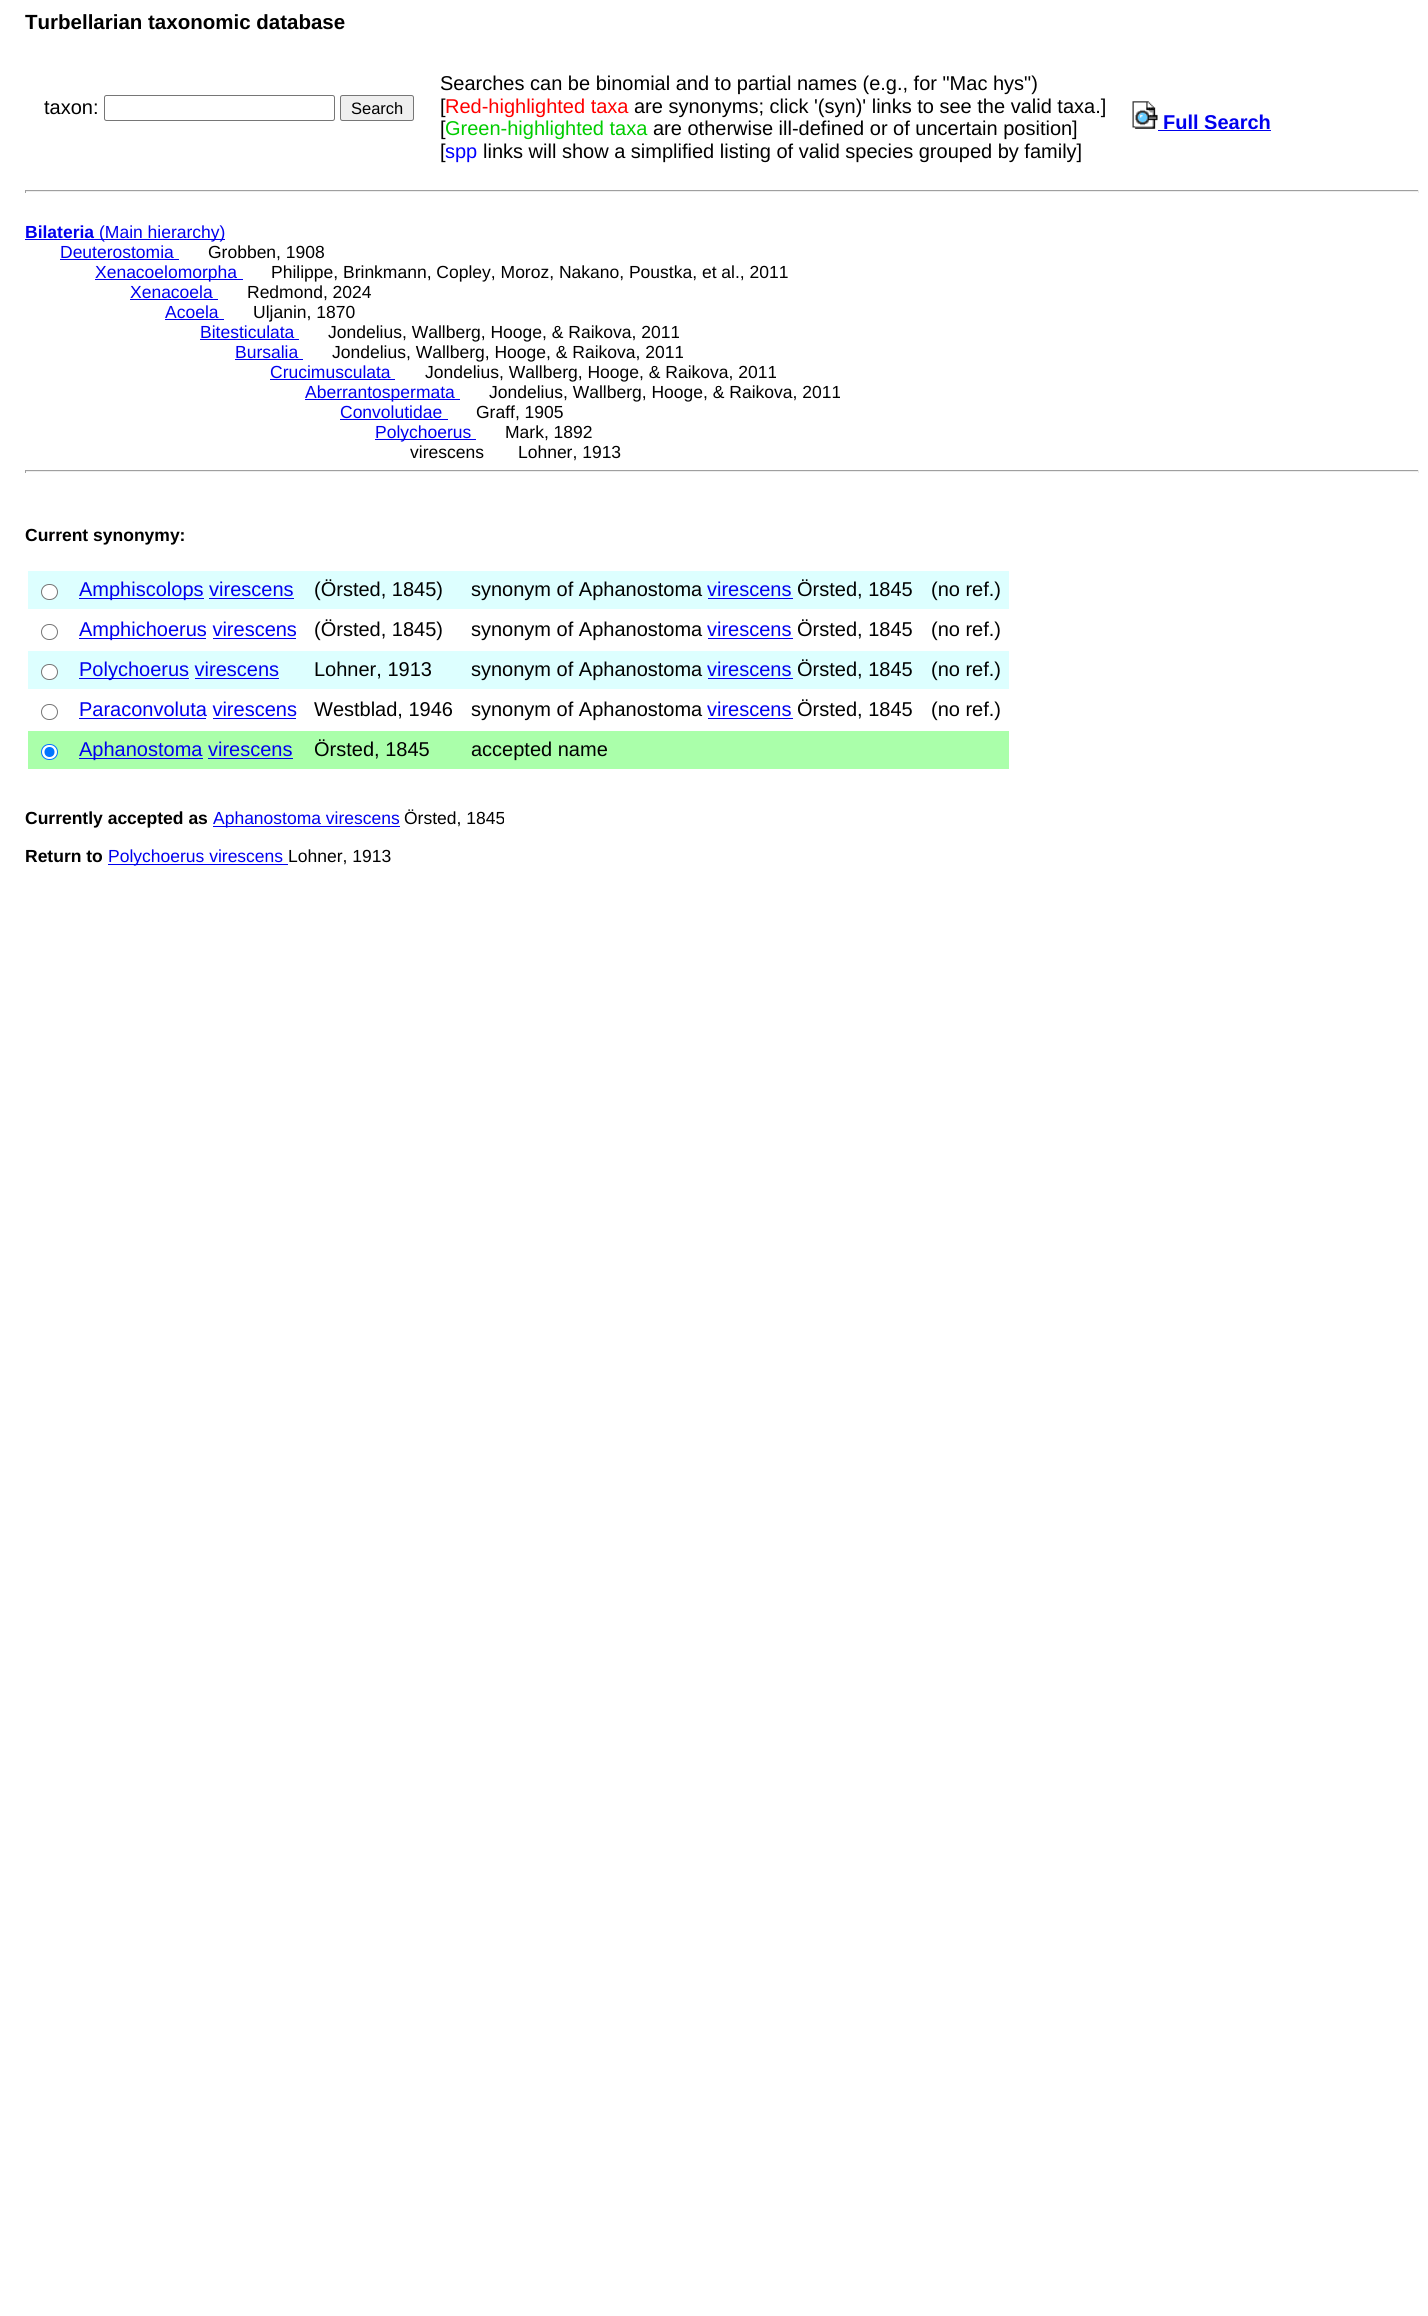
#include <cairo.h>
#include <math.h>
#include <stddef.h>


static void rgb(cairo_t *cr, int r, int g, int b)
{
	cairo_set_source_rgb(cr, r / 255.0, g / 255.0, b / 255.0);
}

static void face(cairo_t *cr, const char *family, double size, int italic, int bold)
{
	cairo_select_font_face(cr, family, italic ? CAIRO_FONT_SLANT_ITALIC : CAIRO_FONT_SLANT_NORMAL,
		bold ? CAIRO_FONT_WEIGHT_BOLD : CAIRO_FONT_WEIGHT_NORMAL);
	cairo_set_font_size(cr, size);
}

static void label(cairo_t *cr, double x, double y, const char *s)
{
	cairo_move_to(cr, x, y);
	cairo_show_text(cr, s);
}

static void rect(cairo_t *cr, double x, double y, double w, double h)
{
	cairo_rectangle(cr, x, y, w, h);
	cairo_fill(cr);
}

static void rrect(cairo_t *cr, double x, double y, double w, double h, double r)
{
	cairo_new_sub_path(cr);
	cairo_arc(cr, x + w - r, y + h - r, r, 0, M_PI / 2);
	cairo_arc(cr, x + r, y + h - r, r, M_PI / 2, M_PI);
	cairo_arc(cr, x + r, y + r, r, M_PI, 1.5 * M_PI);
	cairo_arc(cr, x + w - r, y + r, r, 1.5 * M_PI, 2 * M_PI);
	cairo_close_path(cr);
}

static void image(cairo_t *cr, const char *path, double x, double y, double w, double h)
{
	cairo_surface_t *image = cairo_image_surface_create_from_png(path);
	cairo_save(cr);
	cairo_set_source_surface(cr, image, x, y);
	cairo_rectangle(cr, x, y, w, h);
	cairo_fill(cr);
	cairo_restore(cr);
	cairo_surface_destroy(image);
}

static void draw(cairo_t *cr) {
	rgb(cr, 255, 255, 255);
	cairo_paint(cr);
	face(cr, "Liberation Sans", 20.5, 0, 1);
	rgb(cr, 0, 0, 0);
	label(cr, 25, 29, "Turbellarian taxonomic database");
	face(cr, "Liberation Sans", 20, 0, 0);
	label(cr, 44, 114, "taxon:");
	rrect(cr, 104.5, 95.5, 230, 25, 2);
	rgb(cr, 118, 118, 118);
	cairo_set_line_width(cr, 1);
	cairo_stroke(cr);
	rgb(cr, 239, 239, 239);
	rrect(cr, 340.5, 95.5, 73, 25, 2);
	cairo_fill_preserve(cr);
	rgb(cr, 118, 118, 118);
	cairo_stroke(cr);
	face(cr, "Liberation Sans", 16.5, 0, 0);
	rgb(cr, 0, 0, 0);
	label(cr, 351, 114, "Search");
	face(cr, "Liberation Sans", 20, 0, 0);
	label(cr, 440, 90, "Searches can be binomial and to partial names (e.g., for \"Mac hys\")");
	label(cr, 440, 113, "[");
	rgb(cr, 255, 0, 0);
	label(cr, 445, 113, "Red-highlighted taxa");
	rgb(cr, 0, 0, 0);
	label(cr, 634, 113, "are synonyms; click '(syn)' links to see the valid taxa.]");
	label(cr, 440, 135, "[");
	rgb(cr, 0, 204, 0);
	label(cr, 445, 135, "Green-highlighted taxa");
	rgb(cr, 0, 0, 0);
	label(cr, 653, 135, "are otherwise ill-defined or of uncertain position]");
	label(cr, 440, 158, "[");
	rgb(cr, 0, 0, 255);
	label(cr, 445, 158, "spp");
	rgb(cr, 0, 0, 0);
	label(cr, 483, 158, "links will show a simplified listing of valid species grouped by family]");
	image(cr, "image0.png", 1132, 101, 26, 28);
	face(cr, "Liberation Sans", 20, 0, 1);
	rgb(cr, 0, 0, 238);
	label(cr, 1163, 129, "Full Search");
	rect(cr, 1158, 130, 113, 1);
	rgb(cr, 159, 159, 159);
	rect(cr, 25, 190, 1394, 1);
	rgb(cr, 238, 238, 238);
	rect(cr, 1418, 190, 1, 3);
	rect(cr, 25, 191, 1394, 1);
	rgb(cr, 159, 159, 159);
	rect(cr, 25, 190, 1, 3);
	face(cr, "Liberation Sans", 17.5, 0, 1);
	rgb(cr, 0, 0, 238);
	label(cr, 25, 238, "Bilateria");
	rect(cr, 25, 239, 200, 1);
	face(cr, "Liberation Sans", 17.5, 0, 0);
	label(cr, 99, 238, "(Main hierarchy)");
	label(cr, 60, 258, "Deuterostomia");
	rect(cr, 60, 259, 119, 1);
	rgb(cr, 0, 0, 0);
	label(cr, 208, 258, "Grobben, 1908");
	rgb(cr, 0, 0, 238);
	rect(cr, 95, 279, 148, 1);
	label(cr, 95, 278, "Xenacoelomorpha");
	rgb(cr, 0, 0, 0);
	label(cr, 271, 278, "Philippe, Brinkmann, Copley, Moroz, Nakano, Poustka, et al., 2011");
	rgb(cr, 0, 0, 238);
	label(cr, 130, 298, "Xenacoela");
	rect(cr, 130, 299, 88, 1);
	rgb(cr, 0, 0, 0);
	label(cr, 247, 298, "Redmond, 2024");
	rgb(cr, 0, 0, 238);
	label(cr, 165, 318, "Acoela");
	rect(cr, 165, 319, 59, 1);
	rgb(cr, 0, 0, 0);
	label(cr, 253, 318, "Uljanin, 1870");
	rgb(cr, 0, 0, 238);
	label(cr, 200, 338, "Bitesticulata");
	rect(cr, 200, 339, 99, 1);
	rgb(cr, 0, 0, 0);
	label(cr, 328, 338, "Jondelius, Wallberg, Hooge, & Raikova, 2011");
	rgb(cr, 0, 0, 238);
	label(cr, 235, 358, "Bursalia");
	rect(cr, 235, 359, 68, 1);
	rgb(cr, 0, 0, 0);
	label(cr, 332, 358, "Jondelius, Wallberg, Hooge, & Raikova, 2011");
	rgb(cr, 0, 0, 238);
	label(cr, 270, 378, "Crucimusculata");
	rect(cr, 270, 379, 125, 1);
	rgb(cr, 0, 0, 0);
	label(cr, 425, 378, "Jondelius, Wallberg, Hooge, & Raikova, 2011");
	rgb(cr, 0, 0, 238);
	rect(cr, 305, 399, 155, 1);
	label(cr, 305, 398, "Aberrantospermata");
	rgb(cr, 0, 0, 0);
	label(cr, 489, 398, "Jondelius, Wallberg, Hooge, & Raikova, 2011");
	rgb(cr, 0, 0, 238);
	label(cr, 340, 418, "Convolutidae");
	rect(cr, 340, 419, 108, 1);
	rgb(cr, 0, 0, 0);
	label(cr, 476, 418, "Graff, 1905");
	rgb(cr, 0, 0, 238);
	rect(cr, 375, 439, 101, 1);
	label(cr, 375, 438, "Polychoerus");
	rgb(cr, 0, 0, 0);
	label(cr, 505, 438, "Mark, 1892");
	label(cr, 410, 458, "virescens       Lohner, 1913");
	rgb(cr, 159, 159, 159);
	rect(cr, 25, 470, 1394, 1);
	rgb(cr, 238, 238, 238);
	rect(cr, 1418, 470, 1, 3);
	rect(cr, 25, 471, 1394, 1);
	rgb(cr, 159, 159, 159);
	rect(cr, 25, 470, 1, 3);
	face(cr, "Liberation Sans", 17.5, 0, 1);
	rgb(cr, 0, 0, 0);
	label(cr, 25, 541, "Current synonymy:");
	rgb(cr, 221, 255, 255);
	rect(cr, 28, 571, 981, 38);
	rgb(cr, 255, 255, 255);
	rrect(cr, 41.5, 584.5, 16, 15, 7.5);
	cairo_fill_preserve(cr);
	rgb(cr, 118, 118, 118);
	cairo_stroke(cr);
	rgb(cr, 0, 0, 238);
	rect(cr, 79, 598, 125, 1);
	face(cr, "Liberation Sans", 20, 0, 0);
	label(cr, 79, 596, "Amphiscolops virescens");
	rect(cr, 209, 598, 85, 1);
	rgb(cr, 0, 0, 0);
	label(cr, 314, 596, "(Örsted, 1845)");
	label(cr, 471, 596, "synonym of Aphanostoma");
	rgb(cr, 0, 0, 238);
	label(cr, 707, 596, "virescens");
	rect(cr, 708, 598, 85, 1);
	rgb(cr, 0, 0, 0);
	label(cr, 797, 596, "Örsted, 1845");
	label(cr, 931, 596, "(no ref.)");
	rrect(cr, 41.5, 624.5, 16, 15, 7.5);
	rgb(cr, 118, 118, 118);
	cairo_stroke(cr);
	rgb(cr, 0, 0, 238);
	rect(cr, 79, 638, 127, 1);
	label(cr, 79, 636, "Amphichoerus virescens");
	rect(cr, 213, 638, 83, 1);
	rgb(cr, 0, 0, 0);
	label(cr, 314, 636, "(Örsted, 1845)");
	label(cr, 471, 636, "synonym of Aphanostoma");
	rgb(cr, 0, 0, 238);
	label(cr, 707, 636, "virescens");
	rect(cr, 708, 638, 85, 1);
	rgb(cr, 0, 0, 0);
	label(cr, 797, 636, "Örsted, 1845");
	label(cr, 931, 636, "(no ref.)");
	rgb(cr, 221, 255, 255);
	rect(cr, 28, 651, 981, 38);
	rgb(cr, 255, 255, 255);
	rrect(cr, 41.5, 664.5, 16, 15, 7.5);
	cairo_fill_preserve(cr);
	rgb(cr, 118, 118, 118);
	cairo_stroke(cr);
	rgb(cr, 0, 0, 238);
	rect(cr, 79, 678, 110, 1);
	label(cr, 79, 676, "Polychoerus virescens");
	rect(cr, 195, 678, 84, 1);
	rgb(cr, 0, 0, 0);
	label(cr, 314, 676, "Lohner, 1913");
	label(cr, 471, 676, "synonym of Aphanostoma");
	rgb(cr, 0, 0, 238);
	label(cr, 707, 676, "virescens");
	rect(cr, 708, 678, 85, 1);
	rgb(cr, 0, 0, 0);
	label(cr, 797, 676, "Örsted, 1845");
	label(cr, 931, 676, "(no ref.)");
	rrect(cr, 41.5, 704.5, 16, 15, 7.5);
	rgb(cr, 118, 118, 118);
	cairo_stroke(cr);
	rgb(cr, 0, 0, 238);
	label(cr, 79, 716, "Paraconvoluta virescens");
	rect(cr, 79, 718, 127, 1);
	rect(cr, 213, 718, 83, 1);
	rgb(cr, 0, 0, 0);
	label(cr, 314, 716, "Westblad, 1946");
	label(cr, 471, 716, "synonym of Aphanostoma");
	rgb(cr, 0, 0, 238);
	label(cr, 707, 716, "virescens");
	rect(cr, 708, 718, 85, 1);
	rgb(cr, 0, 0, 0);
	label(cr, 797, 716, "Örsted, 1845");
	label(cr, 931, 716, "(no ref.)");
	rgb(cr, 170, 255, 170);
	rect(cr, 28, 731, 981, 38);
	rgb(cr, 255, 255, 255);
	rrect(cr, 41.5, 744.5, 16, 15, 7.5);
	cairo_fill_preserve(cr);
	rgb(cr, 0, 117, 255);
	cairo_stroke(cr);
	cairo_arc(cr, 49.5, 752, 5, 0, 2 * M_PI);
	cairo_fill(cr);
	rgb(cr, 0, 0, 238);
	rect(cr, 79, 758, 124, 1);
	label(cr, 79, 756, "Aphanostoma virescens");
	rect(cr, 208, 758, 85, 1);
	rgb(cr, 0, 0, 0);
	label(cr, 314, 756, "Örsted, 1845");
	label(cr, 471, 756, "accepted name");
	face(cr, "Liberation Sans", 17.5, 0, 1);
	label(cr, 25, 824, "Currently accepted as");
	rgb(cr, 0, 0, 238);
	rect(cr, 213, 826, 187, 1);
	face(cr, "Liberation Sans", 17.5, 0, 0);
	label(cr, 213, 824, "Aphanostoma virescens");
	rgb(cr, 0, 0, 0);
	label(cr, 404, 824, "Örsted, 1845");
	face(cr, "Liberation Sans", 17.5, 0, 1);
	label(cr, 25, 862, "Return to");
	rgb(cr, 0, 0, 238);
	rect(cr, 108, 864, 180, 1);
	face(cr, "Liberation Sans", 17.5, 0, 0);
	label(cr, 108, 862, "Polychoerus virescens");
	rgb(cr, 0, 0, 0);
	label(cr, 288, 862, "Lohner, 1913");
}

int main(void) {
	cairo_surface_t *surface = cairo_image_surface_create(CAIRO_FORMAT_RGB24, 1428, 2316);
	cairo_t *cr = cairo_create(surface);
	cairo_font_options_t *options = cairo_font_options_create();
	cairo_font_options_set_hint_metrics(options, CAIRO_HINT_METRICS_OFF);
	cairo_font_options_set_hint_style(options, CAIRO_HINT_STYLE_NONE);
	cairo_set_font_options(cr, options);
	cairo_set_miter_limit(cr, 4);
	draw(cr);
	cairo_surface_write_to_png(surface, "render.png");
	cairo_font_options_destroy(options);
	cairo_destroy(cr);
	cairo_surface_destroy(surface);
	return 0;
}
